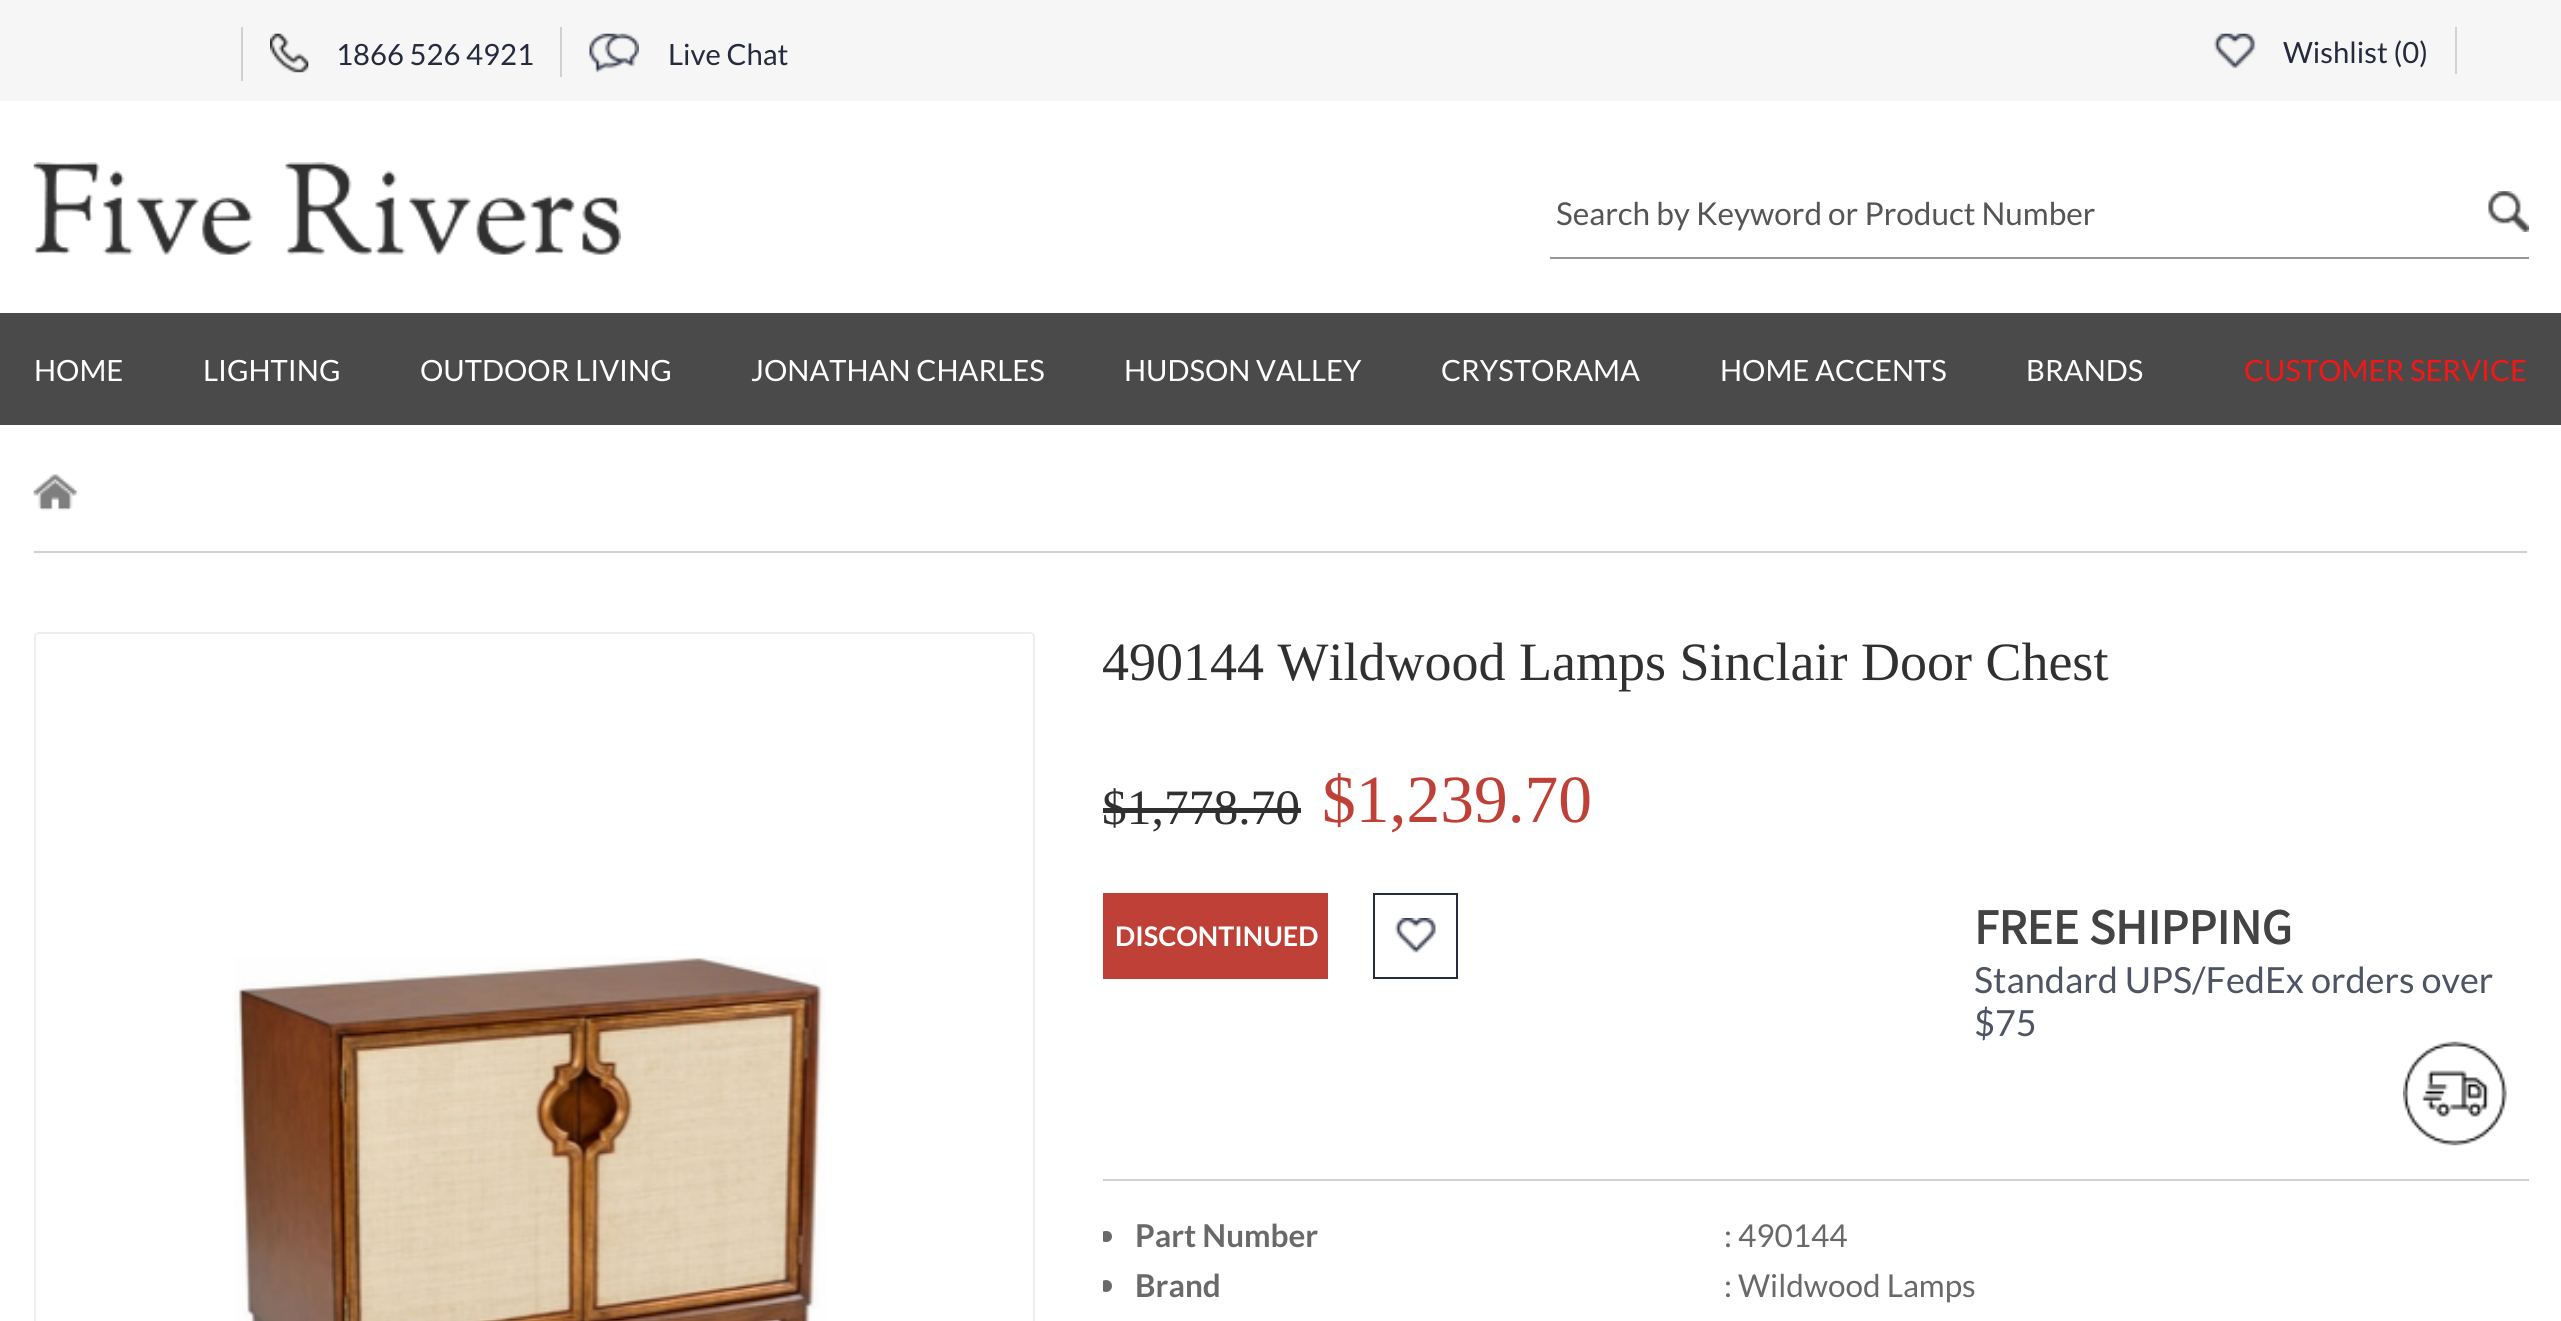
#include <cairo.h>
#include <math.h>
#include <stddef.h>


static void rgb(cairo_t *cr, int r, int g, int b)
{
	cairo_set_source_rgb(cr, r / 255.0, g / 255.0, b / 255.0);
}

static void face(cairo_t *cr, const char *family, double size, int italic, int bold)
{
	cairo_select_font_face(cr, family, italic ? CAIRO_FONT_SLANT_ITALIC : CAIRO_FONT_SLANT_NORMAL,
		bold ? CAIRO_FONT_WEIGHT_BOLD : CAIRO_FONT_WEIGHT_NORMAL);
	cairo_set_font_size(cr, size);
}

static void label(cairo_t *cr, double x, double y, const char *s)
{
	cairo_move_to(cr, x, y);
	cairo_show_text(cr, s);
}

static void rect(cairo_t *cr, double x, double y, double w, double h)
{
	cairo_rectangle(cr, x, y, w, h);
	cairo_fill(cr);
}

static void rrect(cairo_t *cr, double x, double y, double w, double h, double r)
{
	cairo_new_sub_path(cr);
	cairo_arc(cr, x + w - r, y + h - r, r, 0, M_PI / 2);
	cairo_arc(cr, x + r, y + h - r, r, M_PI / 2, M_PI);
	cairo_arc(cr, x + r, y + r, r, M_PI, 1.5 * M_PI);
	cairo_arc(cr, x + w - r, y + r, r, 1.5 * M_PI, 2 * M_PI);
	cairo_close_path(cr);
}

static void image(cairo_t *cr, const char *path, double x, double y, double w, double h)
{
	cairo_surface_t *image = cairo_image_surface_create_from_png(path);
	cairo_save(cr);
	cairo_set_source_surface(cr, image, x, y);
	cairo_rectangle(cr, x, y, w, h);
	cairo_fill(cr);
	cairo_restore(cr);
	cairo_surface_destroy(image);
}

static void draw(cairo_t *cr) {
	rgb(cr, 255, 255, 255);
	cairo_paint(cr);
	rgb(cr, 246, 246, 246);
	rect(cr, 0, 0, 2561, 101);
	rgb(cr, 209, 209, 209);
	rect(cr, 241, 27, 2, 54);
	rect(cr, 560, 27, 2, 50);
	image(cr, "image0.png", 270, 33, 39, 40);
	face(cr, "Lato", 29.25, 0, 0);
	rgb(cr, 37, 42, 61);
	label(cr, 336, 65, "1866 526 4921");
	image(cr, "image1.png", 589, 33, 50, 40);
	label(cr, 668, 65, "Live Chat");
	rgb(cr, 209, 209, 209);
	rect(cr, 2455, 27, 2, 47);
	image(cr, "image2.png", 2214, 33, 42, 36);
	rgb(cr, 37, 42, 61);
	label(cr, 2283, 63, "Wishlist (0)");
	image(cr, "image3.png", 33, 162, 588, 93);
	rgb(cr, 151, 151, 151);
	rect(cr, 1550, 257, 979, 2);
	face(cr, "Lato", 31.5, 0, 0);
	rgb(cr, 85, 85, 85);
	label(cr, 1556, 225, "Search by Keyword or Product Number");
	image(cr, "image4.png", 2488, 191, 41, 41);
	rgb(cr, 74, 74, 74);
	rect(cr, 0, 313, 2561, 112);
	face(cr, "Lato", 29.25, 0, 0);
	rgb(cr, 255, 255, 255);
	label(cr, 34, 381, "HOME");
	label(cr, 203, 381, "LIGHTING");
	label(cr, 420, 381, "OUTDOOR LIVING");
	label(cr, 751, 381, "JONATHAN CHARLES");
	label(cr, 1124, 381, "HUDSON VALLEY");
	label(cr, 1441, 381, "CRYSTORAMA");
	label(cr, 1720, 381, "HOME ACCENTS");
	label(cr, 2026, 381, "BRANDS");
	rgb(cr, 246, 22, 21);
	label(cr, 2244, 381, "CUSTOMER SERVICE");
	rgb(cr, 209, 209, 209);
	rect(cr, 34, 551, 2493, 2);
	image(cr, "image5.png", 33, 474, 45, 37);
	rrect(cr, 35, 633, 999, 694, 4);
	rgb(cr, 238, 238, 238);
	cairo_stroke(cr);
	image(cr, "image6.png", 234, 956, 592, 365);
	face(cr, "Liberation Serif", 54, 0, 0);
	rgb(cr, 48, 48, 48);
	label(cr, 1102, 680, "490144 Wildwood Lamps Sinclair Door Chest");
	face(cr, "Liberation Serif", 49.5, 0, 0);
	label(cr, 1102, 824, "$1,778.70");
	rect(cr, 1103, 808, 198, 5);
	face(cr, "Liberation Serif", 67.5, 0, 0);
	rgb(cr, 191, 64, 54);
	label(cr, 1322, 822, "$1,239.70");
	rect(cr, 1103, 893, 225, 86);
	face(cr, "Lato", 27, 0, 1);
	rgb(cr, 255, 255, 255);
	label(cr, 1115, 946, "DISCONTINUED");
	cairo_rectangle(cr, 1374, 894, 83, 84);
	rgb(cr, 37, 42, 61);
	cairo_stroke(cr);
	image(cr, "image7.png", 1395, 918, 41, 35);
	face(cr, "Source Sans Pro", 49.5, 0, 1);
	rgb(cr, 67, 67, 67);
	label(cr, 1974, 944, "FREE SHIPPING");
	face(cr, "Lato", 36, 0, 0);
	rgb(cr, 78, 84, 99);
	label(cr, 1974, 993, "Standard UPS/FedEx orders over");
	label(cr, 1974, 1036, "$75");
	image(cr, "image8.png", 2403, 1041, 104, 105);
	rgb(cr, 209, 209, 209);
	rect(cr, 1103, 1179, 1426, 2);
	cairo_save(cr);
	cairo_rectangle(cr, 1103, 1181, 1426, 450);
	cairo_clip(cr);
	rgb(cr, 105, 105, 105);
	rrect(cr, 1100, 1231, 12, 11, 5.5);
	cairo_fill(cr);
	cairo_restore(cr);
	face(cr, "Lato", 31.5, 0, 1);
	rgb(cr, 105, 105, 105);
	label(cr, 1135, 1247, "Part Number");
	face(cr, "Lato", 31.5, 0, 0);
	label(cr, 1724, 1247, ": 490144");
	cairo_save(cr);
	cairo_rectangle(cr, 1103, 1181, 1426, 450);
	cairo_clip(cr);
	cairo_arc(cr, 1106, 1286, 6, 0, 2 * M_PI);
	cairo_fill(cr);
	cairo_restore(cr);
	face(cr, "Lato", 31.5, 0, 1);
	label(cr, 1135, 1297, "Brand");
	face(cr, "Lato", 31.5, 0, 0);
	label(cr, 1724, 1297, ": Wildwood Lamps");
}

int main(void) {
	cairo_surface_t *surface = cairo_image_surface_create(CAIRO_FORMAT_RGB24, 2561, 1321);
	cairo_t *cr = cairo_create(surface);
	cairo_font_options_t *options = cairo_font_options_create();
	cairo_font_options_set_hint_metrics(options, CAIRO_HINT_METRICS_OFF);
	cairo_font_options_set_hint_style(options, CAIRO_HINT_STYLE_NONE);
	cairo_set_font_options(cr, options);
	cairo_set_miter_limit(cr, 4);
	draw(cr);
	cairo_surface_write_to_png(surface, "render.png");
	cairo_font_options_destroy(options);
	cairo_destroy(cr);
	cairo_surface_destroy(surface);
	return 0;
}
